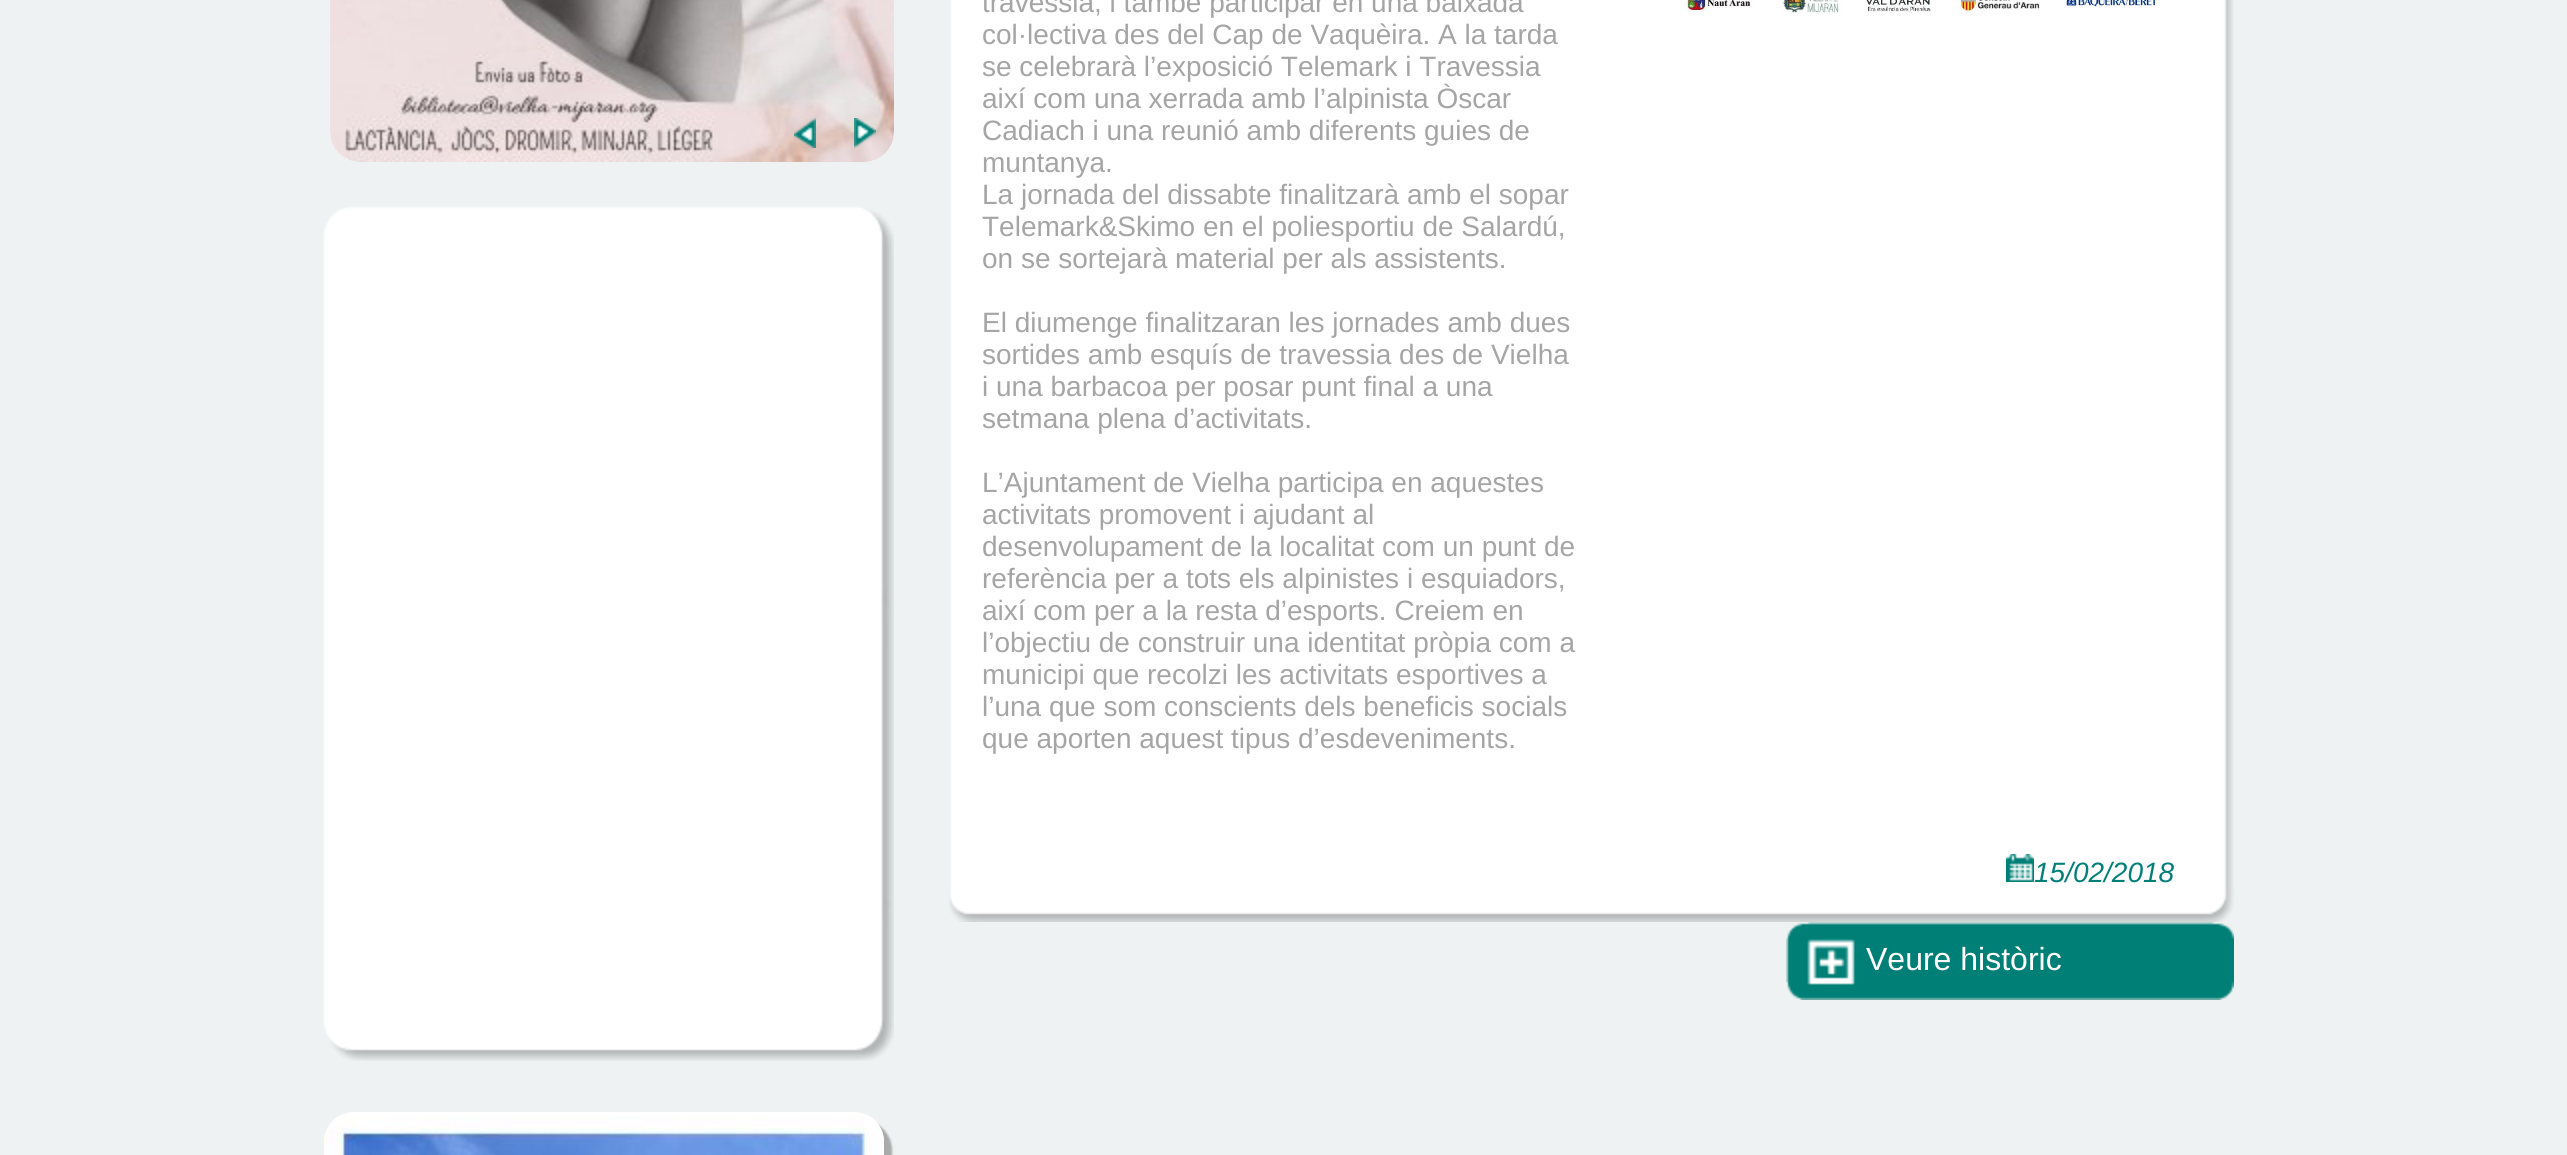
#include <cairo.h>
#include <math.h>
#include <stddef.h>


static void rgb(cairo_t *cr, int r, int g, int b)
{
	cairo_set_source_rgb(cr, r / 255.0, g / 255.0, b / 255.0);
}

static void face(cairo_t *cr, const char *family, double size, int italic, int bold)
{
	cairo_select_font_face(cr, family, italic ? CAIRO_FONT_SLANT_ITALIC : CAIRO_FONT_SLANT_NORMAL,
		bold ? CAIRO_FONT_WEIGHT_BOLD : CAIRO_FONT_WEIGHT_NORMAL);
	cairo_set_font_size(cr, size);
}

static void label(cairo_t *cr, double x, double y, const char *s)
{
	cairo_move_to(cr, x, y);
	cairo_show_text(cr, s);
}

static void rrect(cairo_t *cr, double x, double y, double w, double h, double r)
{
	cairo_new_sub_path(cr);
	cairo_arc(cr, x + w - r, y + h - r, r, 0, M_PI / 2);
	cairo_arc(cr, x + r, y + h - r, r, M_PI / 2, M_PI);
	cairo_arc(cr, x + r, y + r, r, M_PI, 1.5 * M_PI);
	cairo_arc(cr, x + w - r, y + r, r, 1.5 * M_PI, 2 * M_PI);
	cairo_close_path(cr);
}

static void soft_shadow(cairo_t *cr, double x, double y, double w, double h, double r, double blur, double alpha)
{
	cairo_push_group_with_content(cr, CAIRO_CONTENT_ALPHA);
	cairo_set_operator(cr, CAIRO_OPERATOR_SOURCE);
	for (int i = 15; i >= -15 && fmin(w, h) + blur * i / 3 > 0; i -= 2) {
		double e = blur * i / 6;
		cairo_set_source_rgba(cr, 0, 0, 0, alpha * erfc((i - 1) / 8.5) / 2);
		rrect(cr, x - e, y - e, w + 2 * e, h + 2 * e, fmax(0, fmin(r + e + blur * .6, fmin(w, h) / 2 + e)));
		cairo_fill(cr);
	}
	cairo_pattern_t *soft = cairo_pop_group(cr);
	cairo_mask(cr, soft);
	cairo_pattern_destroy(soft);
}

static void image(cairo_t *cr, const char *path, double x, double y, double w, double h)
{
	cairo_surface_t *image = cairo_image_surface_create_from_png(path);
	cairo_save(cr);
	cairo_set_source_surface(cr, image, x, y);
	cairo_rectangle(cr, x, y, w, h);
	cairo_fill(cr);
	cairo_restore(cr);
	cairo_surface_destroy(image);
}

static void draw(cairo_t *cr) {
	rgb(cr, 238, 242, 242);
	cairo_paint(cr);
	rgb(cr, 255, 255, 255);
	rrect(cr, 330, -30, 564, 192, 30);
	cairo_fill(cr);
	image(cr, "image0.png", 330, 0, 564, 162);
	image(cr, "image1.png", 794, 118, 22, 30);
	image(cr, "image2.png", 854, 118, 22, 30);
	image(cr, "image3.png", 323, 206, 571, 855);
	rgb(cr, 170, 170, 170);
	soft_shadow(cr, 332, 1120, 560, 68, 30, 1, 1);
	rgb(cr, 255, 255, 255);
	rrect(cr, 324, 1112, 560, 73, 30);
	cairo_fill(cr);
	image(cr, "image4.png", 324, 1116, 560, 39);
	image(cr, "image5.png", 949, 0, 1285, 888);
	face(cr, "Liberation Sans", 28, 0, 0);
	rgb(cr, 165, 165, 165);
	label(cr, 982, 12, "travessia, i també participar en una baixada");
	label(cr, 982, 44, "col·lectiva des del Cap de Vaquèira. A la tarda");
	label(cr, 982, 76, "se celebrarà l’exposició Telemark i Travessia");
	label(cr, 982, 108, "així com una xerrada amb l’alpinista Òscar");
	label(cr, 982, 140, "Cadiach i una reunió amb diferents guies de");
	label(cr, 982, 172, "muntanya.");
	label(cr, 982, 204, "La jornada del dissabte finalitzarà amb el sopar");
	label(cr, 982, 236, "Telemark&Skimo en el poliesportiu de Salardú,");
	label(cr, 982, 268, "on se sortejarà material per als assistents.");
	label(cr, 982, 332, "El diumenge finalitzaran les jornades amb dues");
	label(cr, 982, 364, "sortides amb esquís de travessia des de Vielha");
	label(cr, 982, 396, "i una barbacoa per posar punt final a una");
	label(cr, 982, 428, "setmana plena d’activitats.");
	label(cr, 982, 492, "L’Ajuntament de Vielha participa en aquestes");
	label(cr, 982, 524, "activitats promovent i ajudant al");
	label(cr, 982, 556, "desenvolupament de la localitat com un punt de");
	label(cr, 982, 588, "referència per a tots els alpinistes i esquiadors,");
	label(cr, 982, 620, "així com per a la resta d’esports. Creiem en");
	label(cr, 982, 652, "l’objectiu de construir una identitat pròpia com a");
	label(cr, 982, 684, "municipi que recolzi les activitats esportives a");
	label(cr, 982, 716, "l’una que som conscients dels beneficis socials");
	label(cr, 982, 748, "que aporten aquest tipus d’esdeveniments.");
	image(cr, "image6.png", 1685, 0, 471, 14);
	image(cr, "image7.png", 2006, 854, 28, 28);
	face(cr, "Liberation Sans", 28, 1, 0);
	rgb(cr, 4, 127, 120);
	label(cr, 2034, 882, "15/02/2018");
	image(cr, "image8.png", 949, 888, 1285, 34);
	image(cr, "image9.png", 1786, 922, 448, 78);
	face(cr, "Liberation Sans", 32, 0, 0);
	rgb(cr, 255, 255, 255);
	label(cr, 1866, 970, "Veure històric");
}

int main(void) {
	cairo_surface_t *surface = cairo_image_surface_create(CAIRO_FORMAT_RGB24, 2567, 1155);
	cairo_t *cr = cairo_create(surface);
	cairo_font_options_t *options = cairo_font_options_create();
	cairo_font_options_set_hint_metrics(options, CAIRO_HINT_METRICS_OFF);
	cairo_font_options_set_hint_style(options, CAIRO_HINT_STYLE_NONE);
	cairo_set_font_options(cr, options);
	cairo_set_miter_limit(cr, 4);
	draw(cr);
	cairo_surface_write_to_png(surface, "render.png");
	cairo_font_options_destroy(options);
	cairo_destroy(cr);
	cairo_surface_destroy(surface);
	return 0;
}
